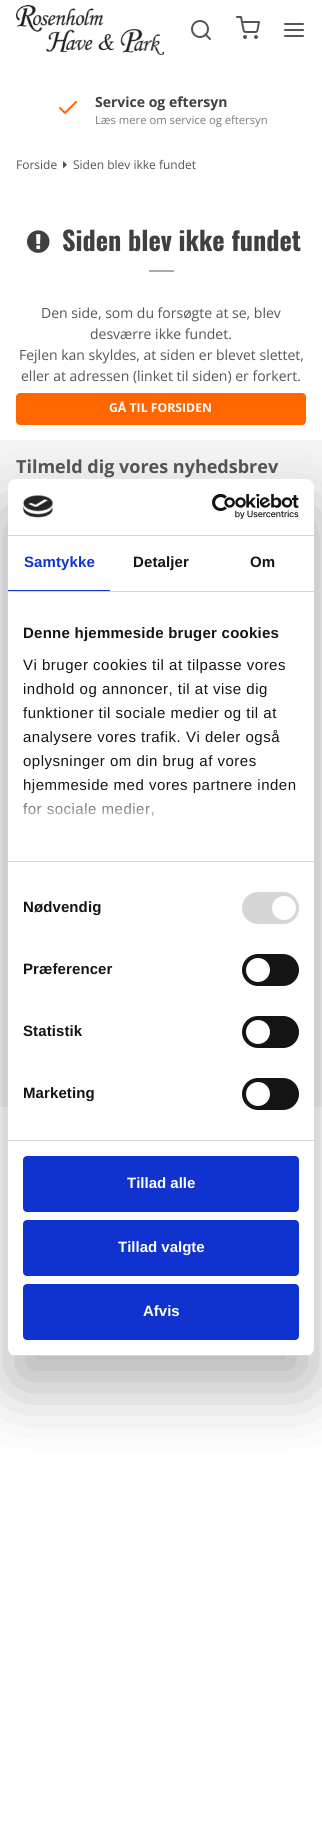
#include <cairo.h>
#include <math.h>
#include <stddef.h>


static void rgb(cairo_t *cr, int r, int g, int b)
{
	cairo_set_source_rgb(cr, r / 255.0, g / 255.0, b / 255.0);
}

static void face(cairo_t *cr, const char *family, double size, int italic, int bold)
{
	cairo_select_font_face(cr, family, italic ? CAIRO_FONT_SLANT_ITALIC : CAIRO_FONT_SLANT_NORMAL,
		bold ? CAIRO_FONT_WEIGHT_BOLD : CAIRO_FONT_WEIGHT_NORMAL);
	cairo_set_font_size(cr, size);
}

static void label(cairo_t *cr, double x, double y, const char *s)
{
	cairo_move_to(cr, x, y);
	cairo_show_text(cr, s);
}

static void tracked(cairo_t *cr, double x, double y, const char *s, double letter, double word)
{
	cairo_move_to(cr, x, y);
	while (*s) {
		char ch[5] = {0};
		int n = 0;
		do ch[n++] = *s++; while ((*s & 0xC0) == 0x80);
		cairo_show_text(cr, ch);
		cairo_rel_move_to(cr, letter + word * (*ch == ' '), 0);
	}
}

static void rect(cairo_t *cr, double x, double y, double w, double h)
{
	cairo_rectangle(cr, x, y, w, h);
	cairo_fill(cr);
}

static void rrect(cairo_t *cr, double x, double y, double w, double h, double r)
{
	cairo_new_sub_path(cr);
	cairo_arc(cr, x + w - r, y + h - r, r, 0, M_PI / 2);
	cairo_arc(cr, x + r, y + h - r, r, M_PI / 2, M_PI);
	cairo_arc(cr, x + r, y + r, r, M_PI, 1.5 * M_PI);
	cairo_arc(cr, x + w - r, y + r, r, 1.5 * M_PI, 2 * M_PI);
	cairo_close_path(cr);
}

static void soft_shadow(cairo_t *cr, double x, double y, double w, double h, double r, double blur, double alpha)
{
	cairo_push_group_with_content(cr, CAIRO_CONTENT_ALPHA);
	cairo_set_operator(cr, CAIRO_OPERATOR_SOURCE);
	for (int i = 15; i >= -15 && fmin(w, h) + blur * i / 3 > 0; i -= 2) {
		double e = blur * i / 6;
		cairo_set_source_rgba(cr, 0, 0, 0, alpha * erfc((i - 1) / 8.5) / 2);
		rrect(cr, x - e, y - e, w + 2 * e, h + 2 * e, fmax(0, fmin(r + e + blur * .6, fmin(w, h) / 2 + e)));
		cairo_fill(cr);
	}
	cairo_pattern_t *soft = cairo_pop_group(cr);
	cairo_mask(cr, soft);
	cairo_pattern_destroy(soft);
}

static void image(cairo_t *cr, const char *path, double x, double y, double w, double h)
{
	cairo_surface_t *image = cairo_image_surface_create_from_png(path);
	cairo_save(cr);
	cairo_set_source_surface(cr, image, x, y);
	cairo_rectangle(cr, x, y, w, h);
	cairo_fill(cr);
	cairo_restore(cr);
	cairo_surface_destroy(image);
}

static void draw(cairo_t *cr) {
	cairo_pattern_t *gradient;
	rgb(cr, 255, 255, 255);
	cairo_paint(cr);
	image(cr, "image0.png", 16, 5, 148, 50);
	cairo_arc(cr, 200, 29, 8, 0, 2 * M_PI);
	rgb(cr, 85, 85, 85);
	cairo_stroke(cr);
	cairo_new_path(cr);
	cairo_move_to(cr, 210, 39);
	cairo_line_to(cr, 205.5, 34.5);
	cairo_set_line_cap(cr, CAIRO_LINE_CAP_ROUND);
	cairo_set_line_join(cr, CAIRO_LINE_JOIN_ROUND);
	cairo_stroke(cr);
	image(cr, "image1.png", 236, 16, 24, 23);
	cairo_new_path(cr);
	cairo_move_to(cr, 285, 30);
	cairo_line_to(cr, 303, 30);
	cairo_move_to(cr, 285, 24);
	cairo_line_to(cr, 303, 24);
	cairo_move_to(cr, 285, 36);
	cairo_line_to(cr, 303, 36);
	cairo_stroke(cr);
	cairo_new_path(cr);
	cairo_move_to(cr, 76, 102);
	cairo_line_to(cr, 65, 113);
	cairo_line_to(cr, 60, 108);
	rgb(cr, 255, 102, 0);
	cairo_stroke(cr);
	face(cr, "Open Sans", 14, 0, 1);
	rgb(cr, 64, 64, 64);
	label(cr, 95, 107, "Service og eftersyn");
	face(cr, "Open Sans", 11.25, 0, 0);
	rgb(cr, 123, 123, 123);
	label(cr, 95, 124, "Læs mere om service og eftersyn");
	face(cr, "Open Sans", 12, 0, 0);
	rgb(cr, 85, 85, 85);
	label(cr, 16, 169, "Forside");
	image(cr, "image2.png", 63, 161, 4, 8);
	label(cr, 73, 169, "Siden blev ikke fundet");
	image(cr, "image3.png", 27, 230, 23, 23);
	face(cr, "Oswald", 26.25, 0, 1);
	rgb(cr, 64, 64, 64);
	label(cr, 62, 251, "Siden blev ikke fundet");
	rgb(cr, 170, 170, 170);
	rect(cr, 149, 270, 25, 2);
	face(cr, "Open Sans", 14, 0, 0);
	rgb(cr, 85, 85, 85);
	label(cr, 41, 318, "Den side, som du forsøgte at se, blev");
	label(cr, 90, 339, "desværre ikke fundet.");
	label(cr, 19, 360, "Fejlen kan skyldes, at siden er blevet slettet,");
	label(cr, 21, 381, "eller at adressen (linket til siden) er forkert.");
	rgb(cr, 255, 102, 0);
	rrect(cr, 16, 393, 290, 32, 4);
	cairo_fill(cr);
	face(cr, "Open Sans", 12.25, 0, 1);
	rgb(cr, 255, 255, 255);
	label(cr, 109, 412, "GÅ TIL FORSIDEN");
	rgb(cr, 244, 244, 244);
	rect(cr, 0, 440, 322, 667);
	face(cr, "Open Sans", 18, 0, 1);
	rgb(cr, 85, 85, 85);
	label(cr, 16, 473, "Tilmeld dig vores nyhedsbrev");
	rgb(cr, 0, 0, 0);
	soft_shadow(cr, 8, 511, 306, 877, 8, 34, 0.3);
	rgb(cr, 255, 255, 255);
	rrect(cr, 8, 479, 306, 877, 8);
	cairo_fill(cr);
	rgb(cr, 214, 214, 214);
	rect(cr, 8, 535, 306, 1);
	image(cr, "image4.png", 23, 495, 30, 23);
	image(cr, "image5.png", 212, 494, 87, 25);
	rect(cr, 8, 591, 306, 1);
	rgb(cr, 16, 50, 207);
	rect(cr, 8, 590, 102, 1);
	face(cr, "Liberation Sans", 15, 0, 1);
	tracked(cr, 24, 567, "Samtykke", 0.1, 0);
	rgb(cr, 20, 20, 20);
	tracked(cr, 133, 567, "Detaljer", 0.1, 0);
	tracked(cr, 250, 567, "Om", 0.1, 0);
	rgb(cr, 214, 214, 214);
	rect(cr, 8, 861, 306, 1);
	rgb(cr, 20, 20, 20);
	tracked(cr, 23, 638, "Denne hjemmeside bruger cookies", 0.25, 0);
	face(cr, "Liberation Sans", 15, 0, 0);
	tracked(cr, 23, 670, "Vi bruger cookies til at tilpasse vores", 0.5, 0);
	tracked(cr, 23, 694, "indhold og annoncer, til at vise dig", 0.5, 0);
	tracked(cr, 23, 718, "funktioner til sociale medier og til at", 0.5, 0);
	tracked(cr, 23, 742, "analysere vores trafik. Vi deler også", 0.5, 0);
	tracked(cr, 23, 766, "oplysninger om din brug af vores", 0.5, 0);
	tracked(cr, 23, 790, "hjemmeside med vores partnere inden", 0.5, 0);
	tracked(cr, 23, 814, "for sociale medier,", 0.5, 0);
	gradient = cairo_pattern_create_linear(155, 861, 155, 786);
	cairo_pattern_add_color_stop_rgba(gradient, 0, 1, 1, 1, 1);
	cairo_pattern_add_color_stop_rgba(gradient, 0.5, 1, 1, 1, 0.8);
	cairo_pattern_add_color_stop_rgba(gradient, 1, 1, 1, 1, 0);
	cairo_set_source(cr, gradient);
	cairo_pattern_destroy(gradient);
	rect(cr, 23, 787, 272, 29);
	rgb(cr, 214, 214, 214);
	rect(cr, 8, 1140, 306, 1);
	face(cr, "Liberation Sans", 15, 0, 1);
	rgb(cr, 20, 20, 20);
	tracked(cr, 23, 912, "Nødvendig", 0.1, 0);
	rgb(cr, 214, 214, 214);
	rrect(cr, 242, 892, 57, 32, 16);
	cairo_fill(cr);
	rgb(cr, 255, 255, 255);
	cairo_arc(cr, 284, 908, 12, 0, 2 * M_PI);
	cairo_fill(cr);
	rgb(cr, 20, 20, 20);
	tracked(cr, 23, 974, "Præferencer", 0.1, 0);
	rrect(cr, 242, 954, 57, 32, 16);
	cairo_fill(cr);
	rgb(cr, 255, 255, 255);
	cairo_arc(cr, 258, 970, 12, 0, 2 * M_PI);
	cairo_fill(cr);
	rgb(cr, 20, 20, 20);
	tracked(cr, 23, 1036, "Statistik", 0.1, 0);
	rrect(cr, 242, 1016, 57, 32, 16);
	cairo_fill(cr);
	rgb(cr, 255, 255, 255);
	cairo_arc(cr, 258, 1032, 12, 0, 2 * M_PI);
	cairo_fill(cr);
	rgb(cr, 20, 20, 20);
	tracked(cr, 23, 1098, "Marketing", 0.1, 0);
	rrect(cr, 242, 1078, 57, 32, 16);
	cairo_fill(cr);
	rgb(cr, 255, 255, 255);
	cairo_arc(cr, 258, 1094, 12, 0, 2 * M_PI);
	cairo_fill(cr);
	cairo_save(cr);
	rrect(cr, 8, 479, 306, 877, 8);
	cairo_clip(cr);
	rgb(cr, 214, 214, 214);
	rect(cr, 8, 1355, 306, 1);
	cairo_restore(cr);
	rgb(cr, 16, 50, 207);
	rrect(cr, 24, 1157, 274, 54, 3);
	cairo_fill_preserve(cr);
	cairo_set_line_cap(cr, CAIRO_LINE_CAP_BUTT);
	cairo_set_line_join(cr, CAIRO_LINE_JOIN_MITER);
	cairo_stroke(cr);
	rgb(cr, 255, 255, 255);
	label(cr, 127, 1188, "Tillad alle");
	rgb(cr, 16, 50, 207);
	rrect(cr, 24, 1221, 274, 54, 3);
	cairo_fill_preserve(cr);
	cairo_stroke(cr);
	rgb(cr, 255, 255, 255);
	label(cr, 118, 1252, "Tillad valgte");
	rgb(cr, 16, 50, 207);
	rrect(cr, 24, 1285, 274, 54, 3);
	cairo_fill_preserve(cr);
	cairo_stroke(cr);
	rgb(cr, 255, 255, 255);
	label(cr, 143, 1316, "Afvis");
}

int main(void) {
	cairo_surface_t *surface = cairo_image_surface_create(CAIRO_FORMAT_RGB24, 322, 1834);
	cairo_t *cr = cairo_create(surface);
	cairo_font_options_t *options = cairo_font_options_create();
	cairo_font_options_set_hint_metrics(options, CAIRO_HINT_METRICS_OFF);
	cairo_font_options_set_hint_style(options, CAIRO_HINT_STYLE_NONE);
	cairo_set_font_options(cr, options);
	cairo_set_miter_limit(cr, 4);
	draw(cr);
	cairo_surface_write_to_png(surface, "render.png");
	cairo_font_options_destroy(options);
	cairo_destroy(cr);
	cairo_surface_destroy(surface);
	return 0;
}
